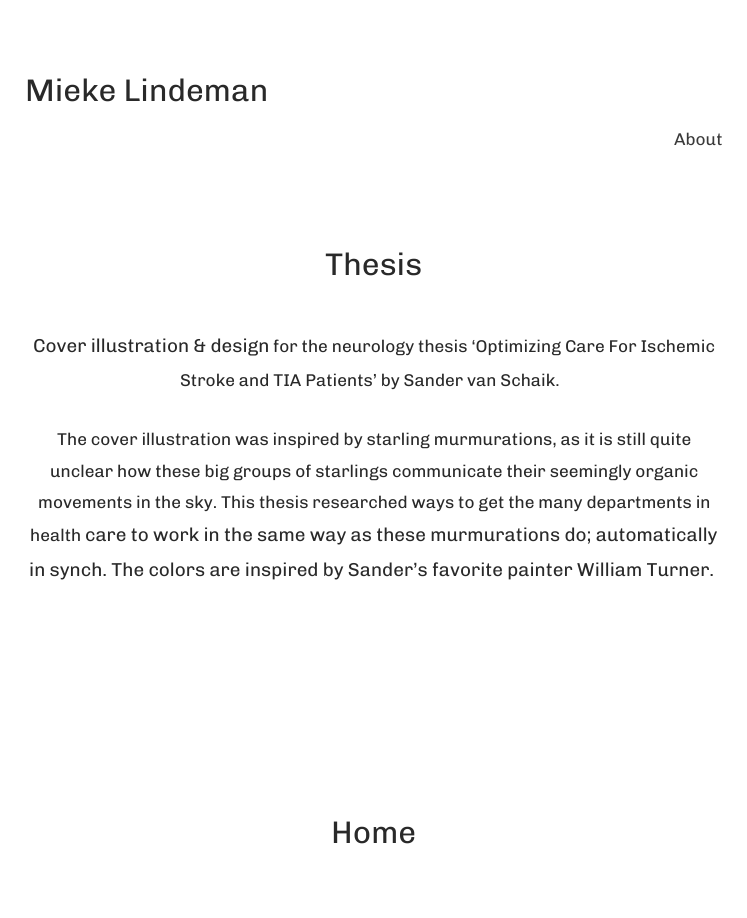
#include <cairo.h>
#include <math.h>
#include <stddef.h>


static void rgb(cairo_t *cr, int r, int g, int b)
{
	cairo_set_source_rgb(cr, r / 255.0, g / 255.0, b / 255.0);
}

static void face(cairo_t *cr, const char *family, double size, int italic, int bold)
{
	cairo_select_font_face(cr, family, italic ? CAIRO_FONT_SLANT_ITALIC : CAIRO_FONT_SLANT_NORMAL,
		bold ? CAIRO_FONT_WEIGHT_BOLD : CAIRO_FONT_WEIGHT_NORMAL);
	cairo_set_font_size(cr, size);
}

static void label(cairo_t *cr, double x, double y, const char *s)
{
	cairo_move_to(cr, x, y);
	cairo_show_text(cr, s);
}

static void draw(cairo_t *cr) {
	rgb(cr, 255, 255, 255);
	cairo_paint(cr);
	face(cr, "Chivo", 31.25, 0, 0);
	rgb(cr, 41, 41, 41);
	label(cr, 25, 101, "Mieke Lindeman");
	face(cr, "Chivo", 17.1, 0, 0);
	rgb(cr, 58, 58, 58);
	label(cr, 674, 145, "About");
	face(cr, "Chivo", 31.25, 0, 0);
	rgb(cr, 41, 41, 41);
	label(cr, 325, 275, "Thesis");
	face(cr, "Chivo", 18.75, 0, 0);
	label(cr, 33, 352, "Cover illustration & design");
	face(cr, "Chivo", 17.1, 0, 0);
	label(cr, 273, 352, "for the neurology thesis ‘Optimizing Care For Ischemic");
	label(cr, 180, 386, "Stroke and TIA Patients’ by Sander van Schaik.");
	label(cr, 57, 445, "The cover illustration was inspired by starling murmurations, as it is still quite");
	label(cr, 50, 477, "unclear how these big groups of starlings communicate their seemingly organic");
	label(cr, 38, 508, "movements in the sky. This thesis researched ways to get the many departments in");
	label(cr, 30, 541, "health");
	face(cr, "Chivo", 18.75, 0, 0);
	label(cr, 85, 541, "care to work in the same way as these murmurations do; automatically");
	label(cr, 29, 576, "in synch. The colors are inspired by Sander’s favorite painter William Turner.");
	face(cr, "Chivo", 31.25, 0, 0);
	label(cr, 331, 843, "Home");
}

int main(void) {
	cairo_surface_t *surface = cairo_image_surface_create(CAIRO_FORMAT_RGB24, 747, 918);
	cairo_t *cr = cairo_create(surface);
	cairo_font_options_t *options = cairo_font_options_create();
	cairo_font_options_set_hint_metrics(options, CAIRO_HINT_METRICS_OFF);
	cairo_font_options_set_hint_style(options, CAIRO_HINT_STYLE_NONE);
	cairo_set_font_options(cr, options);
	cairo_set_miter_limit(cr, 4);
	draw(cr);
	cairo_surface_write_to_png(surface, "render.png");
	cairo_font_options_destroy(options);
	cairo_destroy(cr);
	cairo_surface_destroy(surface);
	return 0;
}
